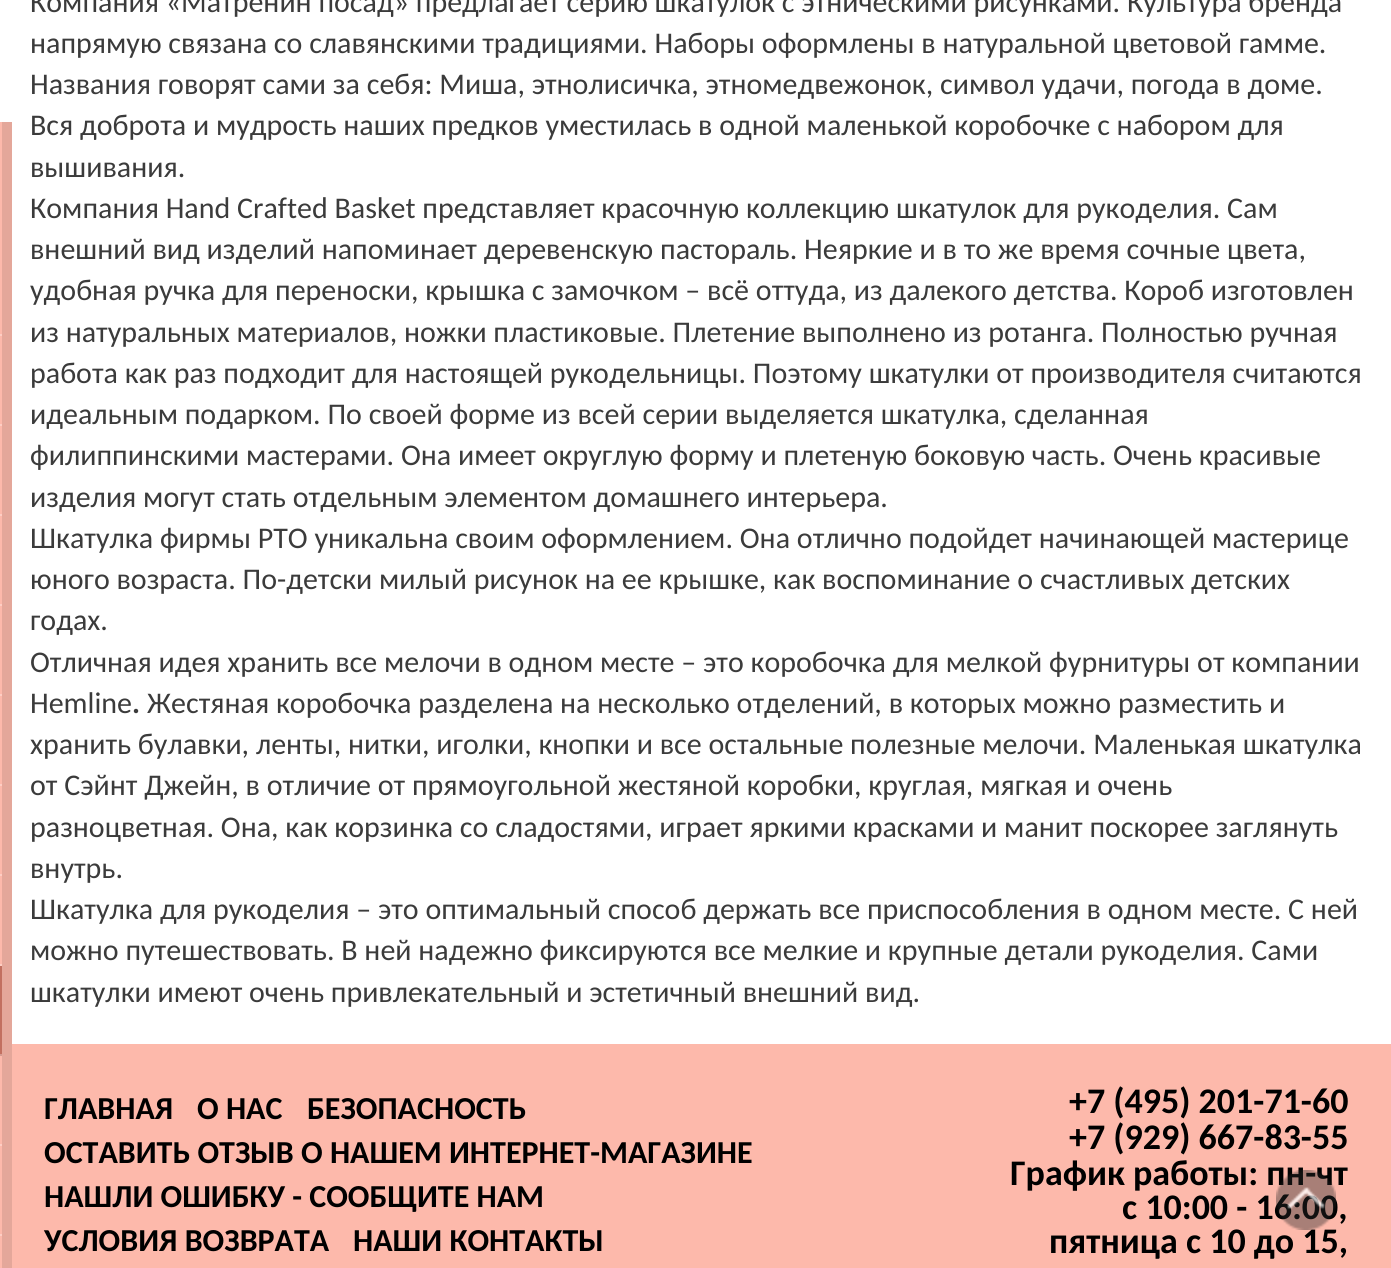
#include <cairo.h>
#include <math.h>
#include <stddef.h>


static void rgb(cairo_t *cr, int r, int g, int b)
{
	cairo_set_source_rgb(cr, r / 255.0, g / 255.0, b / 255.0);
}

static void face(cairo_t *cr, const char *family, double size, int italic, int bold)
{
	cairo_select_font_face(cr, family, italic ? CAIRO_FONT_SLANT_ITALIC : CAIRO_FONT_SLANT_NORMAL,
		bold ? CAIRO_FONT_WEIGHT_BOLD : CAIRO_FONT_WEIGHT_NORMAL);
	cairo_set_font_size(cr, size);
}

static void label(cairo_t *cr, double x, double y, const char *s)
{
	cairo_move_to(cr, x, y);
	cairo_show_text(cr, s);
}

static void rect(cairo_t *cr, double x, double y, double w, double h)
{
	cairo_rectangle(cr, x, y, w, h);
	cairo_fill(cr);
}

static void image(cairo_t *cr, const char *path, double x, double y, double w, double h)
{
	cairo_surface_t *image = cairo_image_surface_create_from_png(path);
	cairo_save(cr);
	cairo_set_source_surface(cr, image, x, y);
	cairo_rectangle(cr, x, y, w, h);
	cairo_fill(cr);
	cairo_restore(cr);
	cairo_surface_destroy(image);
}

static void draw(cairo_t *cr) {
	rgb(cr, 255, 255, 255);
	cairo_paint(cr);
	rgb(cr, 253, 185, 171);
	rect(cr, 0, 122, 2, 1146);
	rgb(cr, 228, 167, 154);
	rect(cr, 2, 122, 10, 1146);
	rgb(cr, 254, 206, 196);
	rect(cr, 0, 334, 2, 2);
	rect(cr, 0, 424, 2, 2);
	rect(cr, 0, 514, 2, 2);
	rect(cr, 0, 604, 2, 2);
	rect(cr, 0, 694, 2, 2);
	rect(cr, 0, 784, 2, 2);
	rect(cr, 0, 874, 2, 2);
	rect(cr, 0, 964, 2, 2);
	rgb(cr, 194, 112, 96);
	rect(cr, 0, 966, 2, 90);
	rgb(cr, 212, 155, 144);
	rect(cr, 0, 1054, 2, 2);
	rgb(cr, 254, 206, 196);
	rect(cr, 0, 1144, 2, 2);
	rect(cr, 0, 1234, 2, 2);
	face(cr, "Carlito", 30, 0, 0);
	rgb(cr, 59, 59, 59);
	label(cr, 30, 12, "Компания «Матренин посад» предлагает серию шкатулок с этническими рисунками. Культура бренда");
	label(cr, 30, 53, "напрямую связана со славянскими традициями. Наборы оформлены в натуральной цветовой гамме.");
	label(cr, 30, 94, "Названия говорят сами за себя: Миша, этнолисичка, этномедвежонок, символ удачи, погода в доме.");
	label(cr, 30, 135, "Вся доброта и мудрость наших предков уместилась в одной маленькой коробочке с набором для");
	label(cr, 30, 177, "вышивания.");
	label(cr, 30, 218, "Компания Hand Crafted Basket представляет красочную коллекцию шкатулок для рукоделия. Сам");
	label(cr, 30, 259, "внешний вид изделий напоминает деревенскую пастораль. Неяркие и в то же время сочные цвета,");
	label(cr, 30, 300, "удобная ручка для переноски, крышка с замочком – всё оттуда, из далекого детства. Короб изготовлен");
	label(cr, 30, 342, "из натуральных материалов, ножки пластиковые. Плетение выполнено из ротанга. Полностью ручная");
	label(cr, 30, 383, "работа как раз подходит для настоящей рукодельницы. Поэтому шкатулки от производителя считаются");
	label(cr, 30, 424, "идеальным подарком. По своей форме из всей серии выделяется шкатулка, сделанная");
	label(cr, 30, 465, "филиппинскими мастерами. Она имеет округлую форму и плетеную боковую часть. Очень красивые");
	label(cr, 30, 507, "изделия могут стать отдельным элементом домашнего интерьера.");
	label(cr, 30, 548, "Шкатулка фирмы РТО уникальна своим оформлением. Она отлично подойдет начинающей мастерице");
	label(cr, 30, 589, "юного возраста. По-детски милый рисунок на ее крышке, как воспоминание о счастливых детских");
	label(cr, 30, 630, "годах.");
	label(cr, 30, 672, "Отличная идея хранить все мелочи в одном месте – это коробочка для мелкой фурнитуры от компании");
	label(cr, 30, 713, "Hemline");
	face(cr, "Carlito", 30, 0, 1);
	label(cr, 132, 713, ".");
	face(cr, "Carlito", 30, 0, 0);
	label(cr, 147, 713, "Жестяная коробочка разделена на несколько отделений, в которых можно разместить и");
	label(cr, 30, 754, "хранить булавки, ленты, нитки, иголки, кнопки и все остальные полезные мелочи. Маленькая шкатулка");
	label(cr, 30, 795, "от Сэйнт Джейн, в отличие от прямоугольной жестяной коробки, круглая, мягкая и очень");
	label(cr, 30, 837, "разноцветная. Она, как корзинка со сладостями, играет яркими красками и манит поскорее заглянуть");
	label(cr, 30, 878, "внутрь.");
	label(cr, 30, 919, "Шкатулка для рукоделия – это оптимальный способ держать все приспособления в одном месте. С ней");
	label(cr, 30, 960, "можно путешествовать. В ней надежно фиксируются все мелкие и крупные детали рукоделия. Сами");
	label(cr, 30, 1002, "шкатулки имеют очень привлекательный и эстетичный внешний вид.");
	rgb(cr, 253, 185, 171);
	rect(cr, 12, 1044, 1379, 224);
	face(cr, "Carlito", 32, 0, 1);
	rgb(cr, 0, 0, 0);
	label(cr, 44, 1119, "ГЛАВНАЯ");
	label(cr, 197, 1119, "О НАС");
	label(cr, 307, 1119, "БЕЗОПАСНОСТЬ");
	label(cr, 44, 1163, "ОСТАВИТЬ ОТЗЫВ О НАШЕМ ИНТЕРНЕТ-МАГАЗИНЕ");
	label(cr, 44, 1207, "НАШЛИ ОШИБКУ - СООБЩИТЕ НАМ");
	label(cr, 44, 1251, "УСЛОВИЯ ВОЗВРАТА");
	label(cr, 353, 1251, "НАШИ КОНТАКТЫ");
	face(cr, "Carlito", 36, 0, 1);
	label(cr, 1069, 1113, "+7 (495) 201-71-60");
	label(cr, 1069, 1149, "+7 (929) 667-83-55");
	label(cr, 1010, 1185, "График работы: пн-чт");
	label(cr, 1122, 1219, "с 10:00 - 16:00,");
	label(cr, 1049, 1253, "пятница с 10 до 15,");
	image(cr, "image0.png", 1276, 1170, 60, 60);
}

int main(void) {
	cairo_surface_t *surface = cairo_image_surface_create(CAIRO_FORMAT_RGB24, 1391, 1268);
	cairo_t *cr = cairo_create(surface);
	cairo_font_options_t *options = cairo_font_options_create();
	cairo_font_options_set_hint_metrics(options, CAIRO_HINT_METRICS_OFF);
	cairo_font_options_set_hint_style(options, CAIRO_HINT_STYLE_NONE);
	cairo_set_font_options(cr, options);
	cairo_set_miter_limit(cr, 4);
	draw(cr);
	cairo_surface_write_to_png(surface, "render.png");
	cairo_font_options_destroy(options);
	cairo_destroy(cr);
	cairo_surface_destroy(surface);
	return 0;
}
